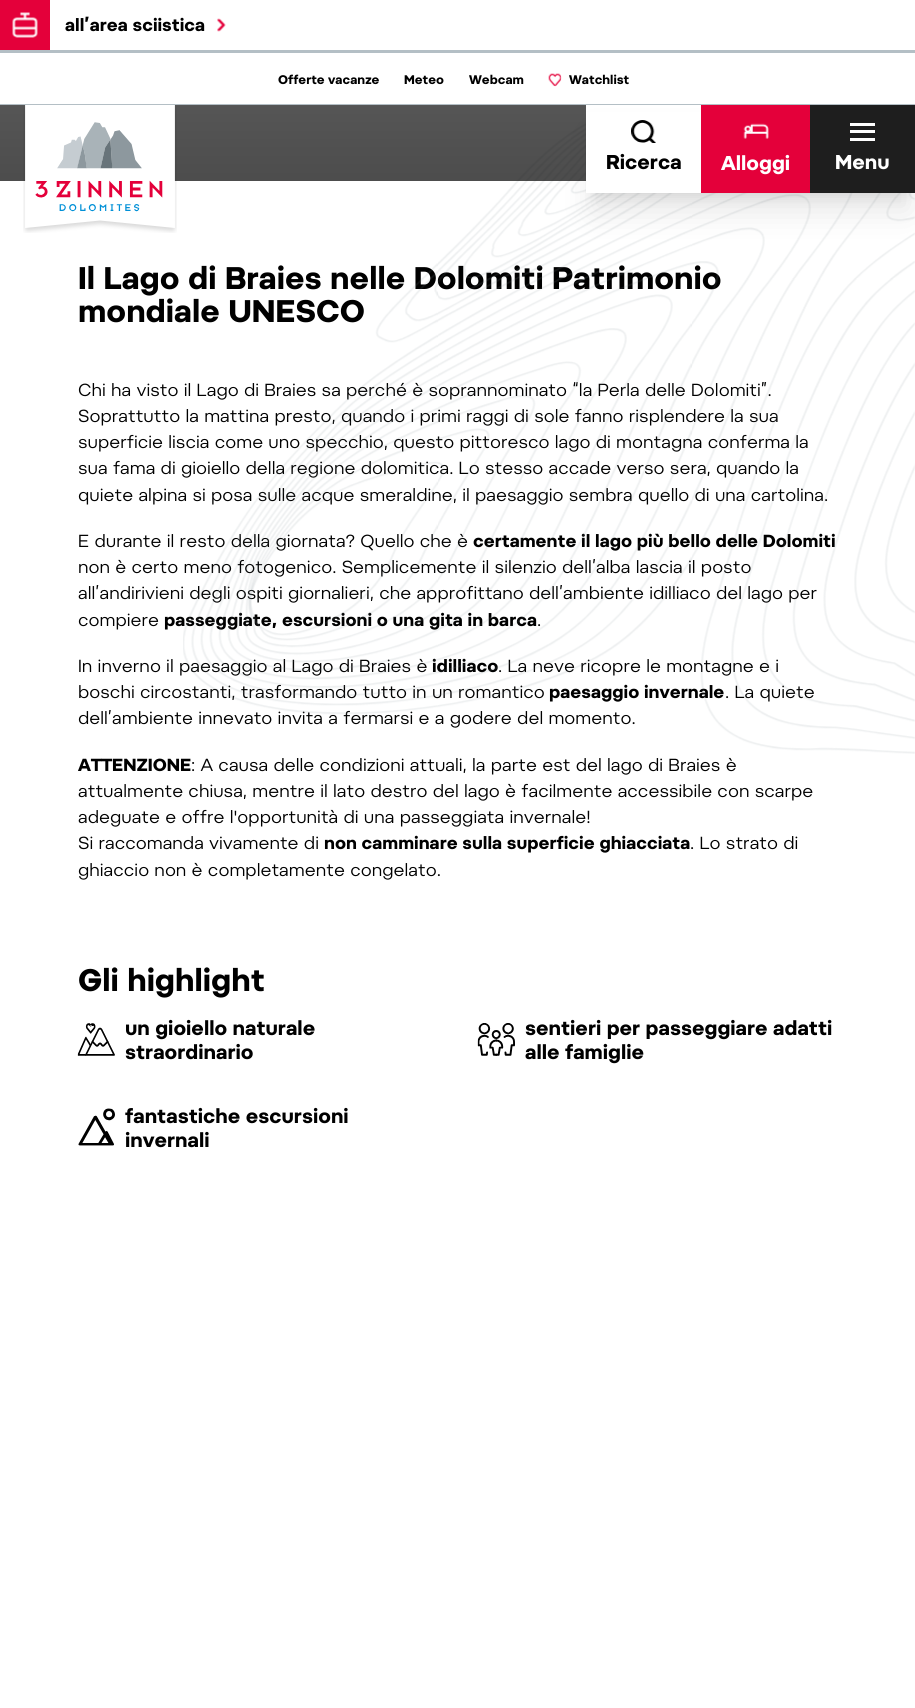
#include <cairo.h>
#include <math.h>
#include <stddef.h>


static void rgb(cairo_t *cr, int r, int g, int b)
{
	cairo_set_source_rgb(cr, r / 255.0, g / 255.0, b / 255.0);
}

static void face(cairo_t *cr, const char *family, double size, int italic, int bold)
{
	cairo_select_font_face(cr, family, italic ? CAIRO_FONT_SLANT_ITALIC : CAIRO_FONT_SLANT_NORMAL,
		bold ? CAIRO_FONT_WEIGHT_BOLD : CAIRO_FONT_WEIGHT_NORMAL);
	cairo_set_font_size(cr, size);
}

static void label(cairo_t *cr, double x, double y, const char *s)
{
	cairo_move_to(cr, x, y);
	cairo_show_text(cr, s);
}

static void rect(cairo_t *cr, double x, double y, double w, double h)
{
	cairo_rectangle(cr, x, y, w, h);
	cairo_fill(cr);
}

static void rrect(cairo_t *cr, double x, double y, double w, double h, double r)
{
	cairo_new_sub_path(cr);
	cairo_arc(cr, x + w - r, y + h - r, r, 0, M_PI / 2);
	cairo_arc(cr, x + r, y + h - r, r, M_PI / 2, M_PI);
	cairo_arc(cr, x + r, y + r, r, M_PI, 1.5 * M_PI);
	cairo_arc(cr, x + w - r, y + r, r, 1.5 * M_PI, 2 * M_PI);
	cairo_close_path(cr);
}

static void soft_shadow(cairo_t *cr, double x, double y, double w, double h, double r, double blur, double alpha)
{
	cairo_push_group_with_content(cr, CAIRO_CONTENT_ALPHA);
	cairo_set_operator(cr, CAIRO_OPERATOR_SOURCE);
	for (int i = 15; i >= -15 && fmin(w, h) + blur * i / 3 > 0; i -= 2) {
		double e = blur * i / 6;
		cairo_set_source_rgba(cr, 0, 0, 0, alpha * erfc((i - 1) / 8.5) / 2);
		rrect(cr, x - e, y - e, w + 2 * e, h + 2 * e, fmax(0, fmin(r + e + blur * .6, fmin(w, h) / 2 + e)));
		cairo_fill(cr);
	}
	cairo_pattern_t *soft = cairo_pop_group(cr);
	cairo_mask(cr, soft);
	cairo_pattern_destroy(soft);
}

static void image(cairo_t *cr, const char *path, double x, double y, double w, double h)
{
	cairo_surface_t *image = cairo_image_surface_create_from_png(path);
	cairo_save(cr);
	cairo_set_source_surface(cr, image, x, y);
	cairo_rectangle(cr, x, y, w, h);
	cairo_fill(cr);
	cairo_restore(cr);
	cairo_surface_destroy(image);
}

static void draw(cairo_t *cr) {
	cairo_pattern_t *gradient;
	rgb(cr, 255, 255, 255);
	cairo_paint(cr);
	rgb(cr, 180, 191, 197);
	rect(cr, 0, 104, 915, 1);
	rgb(cr, 228, 0, 58);
	rect(cr, 0, 0, 50, 50);
	image(cr, "image0.png", 12, 12, 26, 26);
	face(cr, "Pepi", 17.5, 0, 1);
	rgb(cr, 0, 0, 0);
	label(cr, 65, 31, "all’area sciistica");
	image(cr, "image1.png", 217, 18, 9, 14);
	rgb(cr, 180, 191, 197);
	rect(cr, 0, 50, 915, 3);
	face(cr, "Pepi", 12.5, 0, 1);
	rgb(cr, 0, 0, 0);
	label(cr, 278, 84, "Offerte vacanze");
	label(cr, 404, 84, "Meteo");
	label(cr, 469, 84, "Webcam");
	image(cr, "image2.png", 548, 73, 14, 14);
	label(cr, 569, 84, "Watchlist");
	face(cr, "Pepi", 31.25, 0, 1);
	label(cr, 78, 289, "Il Lago di Braies nelle Dolomiti Patrimonio");
	label(cr, 78, 322, "mondiale UNESCO");
	face(cr, "Pepi", 17.5, 0, 0);
	label(cr, 78, 396, "Chi ha visto il Lago di Braies sa perché è soprannominato “la Perla delle Dolomiti”.");
	label(cr, 78, 422, "Soprattutto la mattina presto, quando i primi raggi di sole fanno risplendere la sua");
	label(cr, 78, 448, "superficie liscia come uno specchio, questo pittoresco lago di montagna conferma la");
	label(cr, 78, 474, "sua fama di gioiello della regione dolomitica. Lo stesso accade verso sera, quando la");
	label(cr, 78, 501, "quiete alpina si posa sulle acque smeraldine, il paesaggio sembra quello di una cartolina.");
	label(cr, 78, 547, "E durante il resto della giornata? Quello che è");
	face(cr, "Pepi", 17.5, 0, 1);
	label(cr, 473, 547, "certamente il lago più bello delle Dolomiti");
	face(cr, "Pepi", 17.5, 0, 0);
	label(cr, 78, 573, "non è certo meno fotogenico. Semplicemente il silenzio dell’alba lascia il posto");
	label(cr, 78, 599, "all’andirivieni degli ospiti giornalieri, che approfittano dell’ambiente idilliaco del lago per");
	face(cr, "Pepi", 17.5, 0, 1);
	label(cr, 164, 626, "passeggiate, escursioni o una gita in barca");
	face(cr, "Pepi", 17.5, 0, 0);
	label(cr, 537, 626, ".");
	label(cr, 78, 672, "In inverno il paesaggio al Lago di Braies è");
	face(cr, "Pepi", 17.5, 0, 1);
	label(cr, 432, 672, "idilliaco");
	face(cr, "Pepi", 17.5, 0, 0);
	label(cr, 498, 672, ". La neve ricopre le montagne e i");
	label(cr, 78, 698, "boschi circostanti, trasformando tutto in un romantico");
	face(cr, "Pepi", 17.5, 0, 1);
	label(cr, 549, 698, "paesaggio invernale");
	face(cr, "Pepi", 17.5, 0, 0);
	label(cr, 725, 698, ". La quiete");
	label(cr, 78, 724, "dell’ambiente innevato invita a fermarsi e a godere del momento.");
	image(cr, "image6.png", 183, 123, 732, 631);
	gradient = cairo_pattern_create_linear(458, 181, 458, -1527);
	cairo_pattern_add_color_stop_rgba(gradient, 0, 0, 0, 0, 0.7);
	cairo_pattern_add_color_stop_rgba(gradient, 0.25, 0, 0, 0, 0.5);
	cairo_pattern_add_color_stop_rgba(gradient, 0.4, 0, 0, 0, 0);
	cairo_pattern_add_color_stop_rgba(gradient, 1, 0, 0, 0, 0);
	cairo_set_source(cr, gradient);
	cairo_pattern_destroy(gradient);
	rect(cr, 0, 105, 586, 76);
	image(cr, "image3.png", 23, 105, 154, 128);
	rgb(cr, 0, 0, 0);
	soft_shadow(cr, 594, 123, 314, 72, 0, 6, 0.1);
	soft_shadow(cr, 593, 136, 316, 75, 0, 15.5, 0.1);
	rgb(cr, 255, 255, 255);
	rect(cr, 586, 112, 115, 81);
	image(cr, "image4.png", 631, 120, 25, 23);
	face(cr, "Pepi", 20, 0, 1);
	rgb(cr, 0, 0, 0);
	label(cr, 606, 169, "Ricerca");
	rgb(cr, 228, 0, 58);
	rect(cr, 701, 105, 109, 88);
	image(cr, "image5.png", 743, 123, 26, 16);
	rgb(cr, 255, 255, 255);
	label(cr, 721, 170, "Alloggi");
	rgb(cr, 30, 30, 30);
	rect(cr, 810, 105, 105, 88);
	rgb(cr, 255, 255, 255);
	rect(cr, 850, 123, 25, 3);
	rect(cr, 850, 130, 25, 3);
	rect(cr, 850, 138, 25, 3);
	label(cr, 835, 169, "Menu");
	face(cr, "Pepi", 17.5, 0, 0);
	rgb(cr, 0, 0, 0);
	label(cr, 78, 626, "compiere");
	face(cr, "Pepi", 17.5, 0, 1);
	label(cr, 78, 771, "ATTENZIONE");
	face(cr, "Pepi", 17.5, 0, 0);
	label(cr, 191, 771, ": A causa delle condizioni attuali, la parte est del lago di Braies è");
	label(cr, 78, 797, "attualmente chiusa, mentre il lato destro del lago è facilmente accessibile con scarpe");
	label(cr, 78, 823, "adeguate e offre l'opportunità di una passeggiata invernale!");
	label(cr, 78, 849, "Si raccomanda vivamente di");
	face(cr, "Pepi", 17.5, 0, 1);
	label(cr, 324, 849, "non camminare sulla superficie ghiacciata");
	face(cr, "Pepi", 17.5, 0, 0);
	label(cr, 690, 849, ". Lo strato di");
	label(cr, 78, 876, "ghiaccio non è completamente congelato.");
	face(cr, "Pepi", 31.25, 0, 1);
	label(cr, 78, 991, "Gli highlight");
	image(cr, "image7.png", 77, 1023, 38, 33);
	face(cr, "Pepi", 20, 0, 1);
	label(cr, 125, 1035, "un gioiello naturale");
	label(cr, 125, 1059, "straordinario");
	image(cr, "image8.png", 477, 1023, 38, 33);
	label(cr, 525, 1035, "sentieri per passeggiare adatti");
	label(cr, 525, 1059, "alle famiglie");
	image(cr, "image9.png", 78, 1108, 37, 38);
	label(cr, 125, 1123, "fantastiche escursioni");
	label(cr, 125, 1147, "invernali");
}

int main(void) {
	cairo_surface_t *surface = cairo_image_surface_create(CAIRO_FORMAT_RGB24, 915, 1708);
	cairo_t *cr = cairo_create(surface);
	cairo_font_options_t *options = cairo_font_options_create();
	cairo_font_options_set_hint_metrics(options, CAIRO_HINT_METRICS_OFF);
	cairo_font_options_set_hint_style(options, CAIRO_HINT_STYLE_NONE);
	cairo_set_font_options(cr, options);
	cairo_set_miter_limit(cr, 4);
	draw(cr);
	cairo_surface_write_to_png(surface, "render.png");
	cairo_font_options_destroy(options);
	cairo_destroy(cr);
	cairo_surface_destroy(surface);
	return 0;
}
